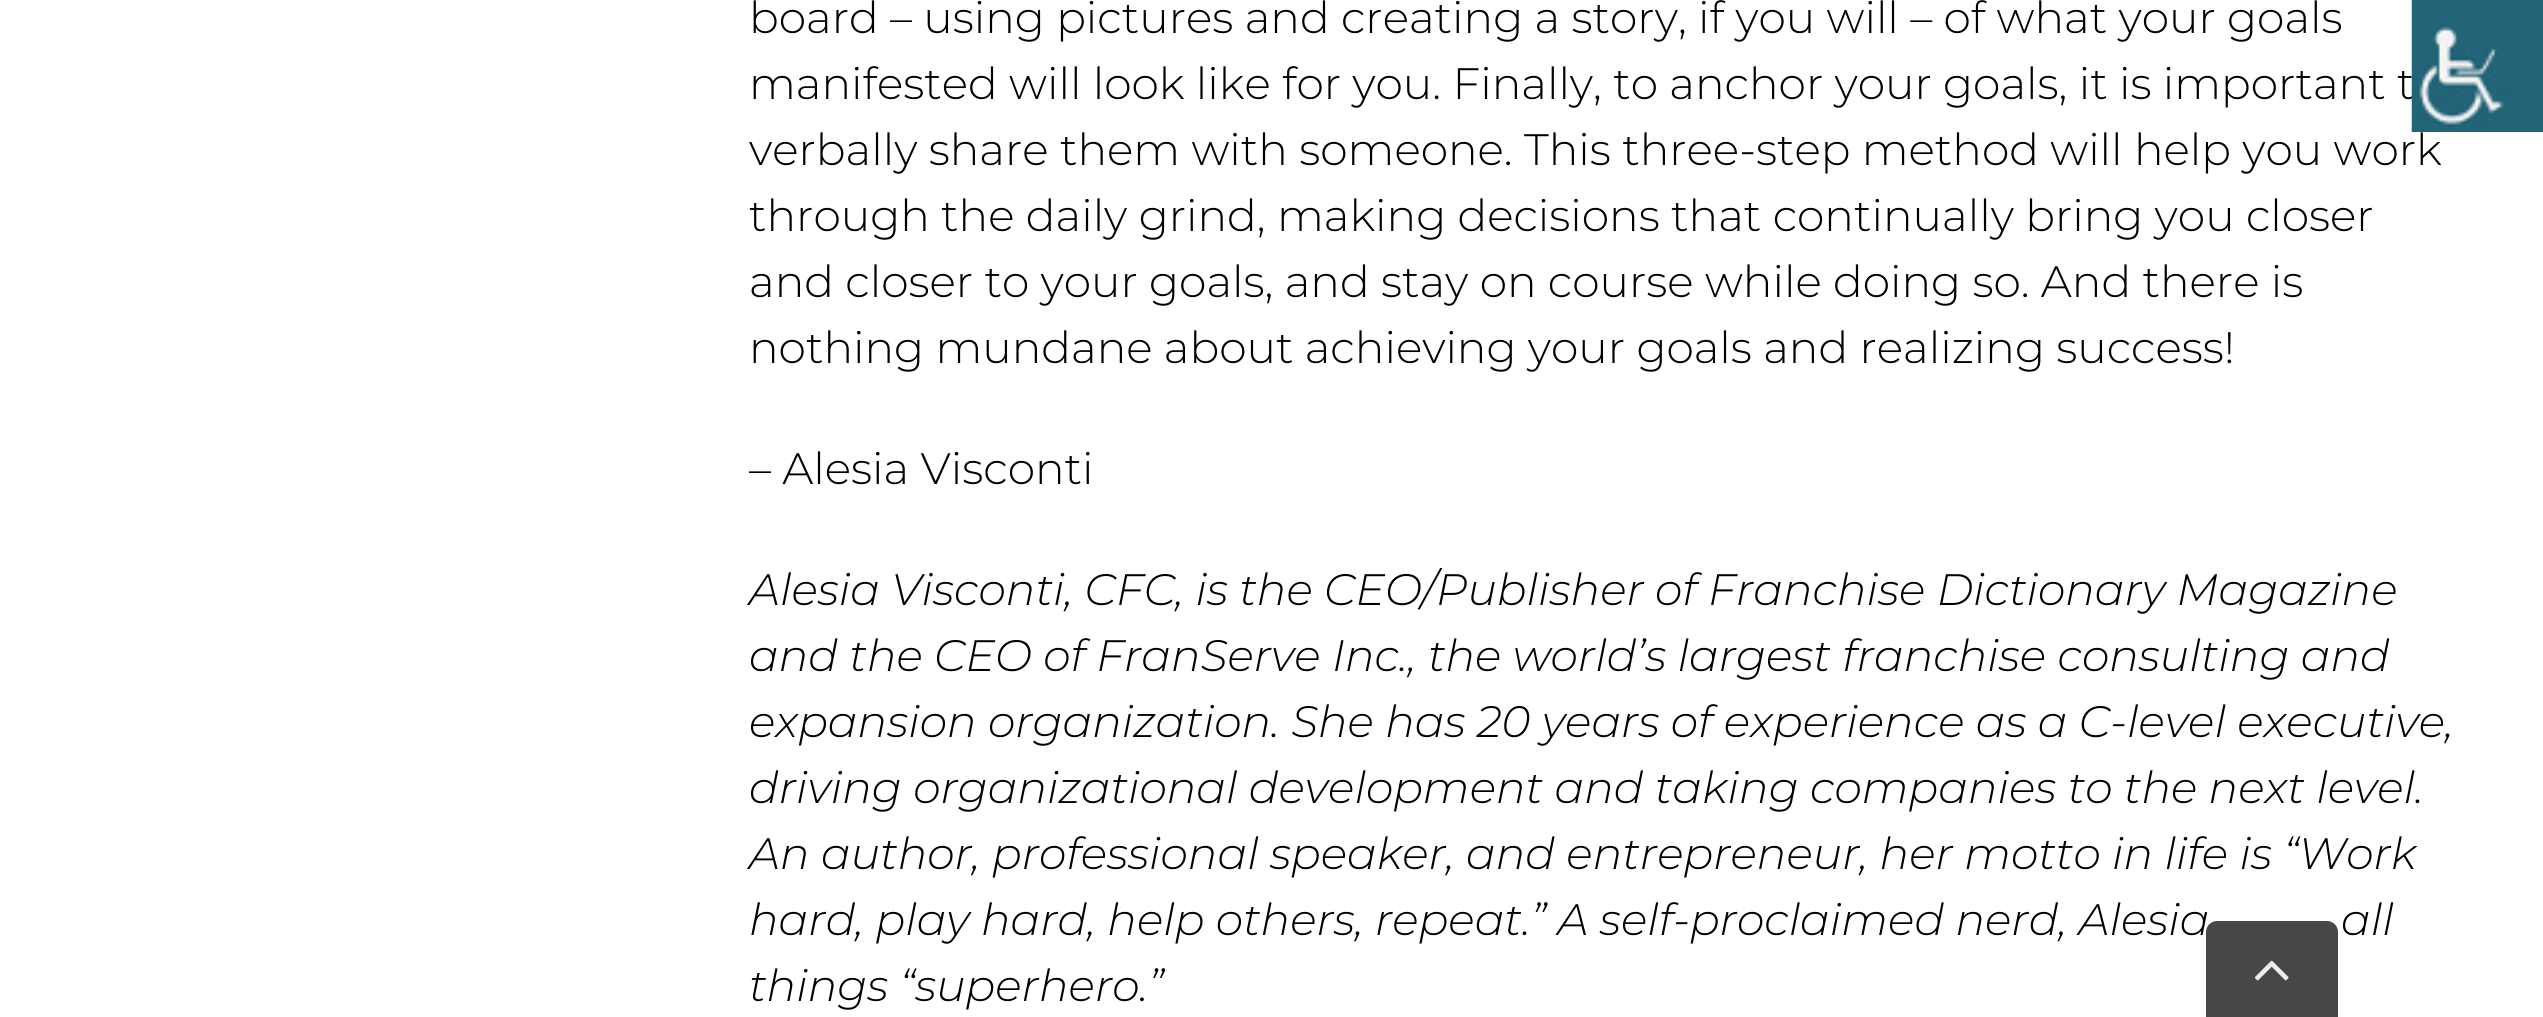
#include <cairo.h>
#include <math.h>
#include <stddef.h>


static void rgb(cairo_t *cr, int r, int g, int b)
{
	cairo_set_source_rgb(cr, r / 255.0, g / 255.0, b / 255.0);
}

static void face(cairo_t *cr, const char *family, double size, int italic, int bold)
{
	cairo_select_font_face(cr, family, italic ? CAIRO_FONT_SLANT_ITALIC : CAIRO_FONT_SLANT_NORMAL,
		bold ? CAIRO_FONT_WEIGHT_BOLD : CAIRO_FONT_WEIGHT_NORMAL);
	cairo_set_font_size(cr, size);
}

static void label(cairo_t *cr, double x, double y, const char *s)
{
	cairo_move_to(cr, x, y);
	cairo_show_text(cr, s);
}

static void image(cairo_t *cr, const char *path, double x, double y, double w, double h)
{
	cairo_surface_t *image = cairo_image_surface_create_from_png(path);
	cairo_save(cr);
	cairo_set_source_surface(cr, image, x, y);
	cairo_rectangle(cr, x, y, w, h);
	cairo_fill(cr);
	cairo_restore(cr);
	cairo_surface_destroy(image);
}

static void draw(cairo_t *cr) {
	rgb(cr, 255, 255, 255);
	cairo_paint(cr);
	face(cr, "Montserrat Light", 44, 0, 0);
	rgb(cr, 0, 0, 0);
	label(cr, 749, 33, "board – using pictures and creating a story, if you will – of what your goals");
	label(cr, 749, 99, "manifested will look like for you. Finally, to anchor your goals, it is important t");
	label(cr, 749, 165, "verbally share them with someone. This three-step method will help you work");
	label(cr, 749, 231, "through the daily grind, making decisions that continually bring you closer");
	label(cr, 749, 297, "and closer to your goals, and stay on course while doing so. And there is");
	label(cr, 749, 363, "nothing mundane about achieving your goals and realizing success!");
	label(cr, 749, 484, "– Alesia Visconti");
	face(cr, "Montserrat Light", 44, 1, 0);
	label(cr, 749, 605, "Alesia Visconti, CFC, is the CEO/Publisher of Franchise Dictionary Magazine");
	label(cr, 749, 671, "and the CEO of FranServe Inc., the world’s largest franchise consulting and");
	label(cr, 749, 737, "expansion organization. She has 20 years of experience as a C-level executive,");
	label(cr, 749, 803, "driving organizational development and taking companies to the next level.");
	label(cr, 749, 869, "An author, professional speaker, and entrepreneur, her motto in life is “Work");
	label(cr, 749, 935, "hard, play hard, help others, repeat.” A self-proclaimed nerd, Alesia");
	label(cr, 2341, 935, "all");
	label(cr, 749, 1001, "things “superhero.”");
	image(cr, "image0.png", 2411, 0, 132, 132);
	cairo_set_source_rgba(cr, 0.2, 0.2, 0.2, 0.9);
	cairo_new_path(cr);
	cairo_move_to(cr, 2217, 921);
	cairo_line_to(cr, 2327, 921);
	cairo_curve_to(cr, 2333, 921, 2338, 926, 2338, 932);
	cairo_line_to(cr, 2338, 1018);
	cairo_line_to(cr, 2206, 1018);
	cairo_line_to(cr, 2206, 932);
	cairo_curve_to(cr, 2206, 926, 2211, 921, 2217, 921);
	cairo_close_path(cr);
	cairo_fill(cr);
	image(cr, "image1.png", 2254, 960, 35, 21);
}

int main(void) {
	cairo_surface_t *surface = cairo_image_surface_create(CAIRO_FORMAT_RGB24, 2543, 1017);
	cairo_t *cr = cairo_create(surface);
	cairo_font_options_t *options = cairo_font_options_create();
	cairo_font_options_set_hint_metrics(options, CAIRO_HINT_METRICS_OFF);
	cairo_font_options_set_hint_style(options, CAIRO_HINT_STYLE_NONE);
	cairo_set_font_options(cr, options);
	cairo_set_miter_limit(cr, 4);
	draw(cr);
	cairo_surface_write_to_png(surface, "render.png");
	cairo_font_options_destroy(options);
	cairo_destroy(cr);
	cairo_surface_destroy(surface);
	return 0;
}
